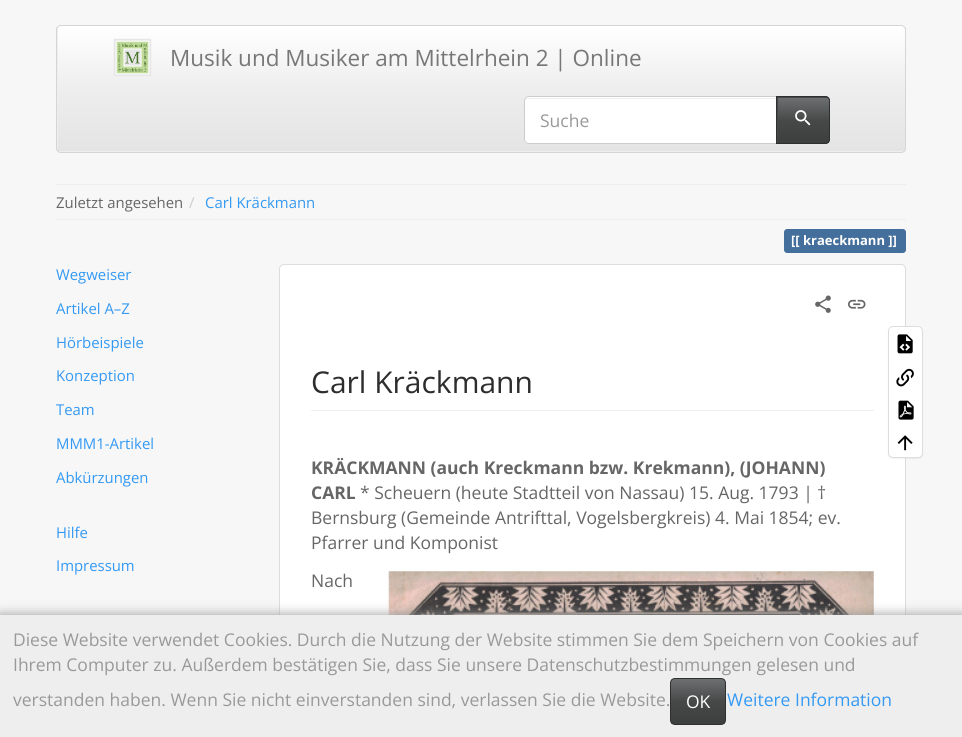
#include <cairo.h>
#include <math.h>
#include <stddef.h>


static void rgb(cairo_t *cr, int r, int g, int b)
{
	cairo_set_source_rgb(cr, r / 255.0, g / 255.0, b / 255.0);
}

static void face(cairo_t *cr, const char *family, double size, int italic, int bold)
{
	cairo_select_font_face(cr, family, italic ? CAIRO_FONT_SLANT_ITALIC : CAIRO_FONT_SLANT_NORMAL,
		bold ? CAIRO_FONT_WEIGHT_BOLD : CAIRO_FONT_WEIGHT_NORMAL);
	cairo_set_font_size(cr, size);
}

static void label(cairo_t *cr, double x, double y, const char *s)
{
	cairo_move_to(cr, x, y);
	cairo_show_text(cr, s);
}

static void rect(cairo_t *cr, double x, double y, double w, double h)
{
	cairo_rectangle(cr, x, y, w, h);
	cairo_fill(cr);
}

static void rrect(cairo_t *cr, double x, double y, double w, double h, double r)
{
	cairo_new_sub_path(cr);
	cairo_arc(cr, x + w - r, y + h - r, r, 0, M_PI / 2);
	cairo_arc(cr, x + r, y + h - r, r, M_PI / 2, M_PI);
	cairo_arc(cr, x + r, y + r, r, M_PI, 1.5 * M_PI);
	cairo_arc(cr, x + w - r, y + r, r, 1.5 * M_PI, 2 * M_PI);
	cairo_close_path(cr);
}

static void soft_shadow(cairo_t *cr, double x, double y, double w, double h, double r, double blur, double alpha)
{
	cairo_push_group_with_content(cr, CAIRO_CONTENT_ALPHA);
	cairo_set_operator(cr, CAIRO_OPERATOR_SOURCE);
	for (int i = 15; i >= -15 && fmin(w, h) + blur * i / 3 > 0; i -= 2) {
		double e = blur * i / 6;
		cairo_set_source_rgba(cr, 0, 0, 0, alpha * erfc((i - 1) / 8.5) / 2);
		rrect(cr, x - e, y - e, w + 2 * e, h + 2 * e, fmax(0, fmin(r + e + blur * .6, fmin(w, h) / 2 + e)));
		cairo_fill(cr);
	}
	cairo_pattern_t *soft = cairo_pop_group(cr);
	cairo_mask(cr, soft);
	cairo_pattern_destroy(soft);
}

static void image(cairo_t *cr, const char *path, double x, double y, double w, double h)
{
	cairo_surface_t *image = cairo_image_surface_create_from_png(path);
	cairo_save(cr);
	cairo_set_source_surface(cr, image, x, y);
	cairo_rectangle(cr, x, y, w, h);
	cairo_fill(cr);
	cairo_restore(cr);
	cairo_surface_destroy(image);
}

static void draw(cairo_t *cr) {
	cairo_pattern_t *gradient;
	rgb(cr, 247, 247, 247);
	cairo_paint(cr);
	rgb(cr, 238, 238, 238);
	rrect(cr, 56, 25, 850, 128, 5);
	cairo_fill(cr);
	gradient = cairo_pattern_create_linear(481, 26, 481, 151);
	cairo_pattern_add_color_stop_rgba(gradient, 0, 1, 1, 1, 1);
	cairo_pattern_add_color_stop_rgba(gradient, 0.5, 0.933, 0.933, 0.933, 1);
	cairo_pattern_add_color_stop_rgba(gradient, 1, 0.894, 0.894, 0.894, 1);
	cairo_set_source(cr, gradient);
	cairo_pattern_destroy(gradient);
	rect(cr, 58, 26, 847, 125);
	rrect(cr, 56.5, 25.5, 849, 127, 4.5);
	rgb(cr, 213, 213, 213);
	cairo_set_line_width(cr, 1);
	cairo_stroke(cr);
	image(cr, "image0.png", 113, 38, 39, 38);
	face(cr, "Open Sans", 22.5, 0, 0);
	rgb(cr, 119, 119, 119);
	label(cr, 170, 66, "Musik und Musiker am Mittelrhein 2 | Online");
	rgb(cr, 255, 255, 255);
	cairo_new_path(cr);
	cairo_move_to(cr, 529, 96);
	cairo_line_to(cr, 778, 96);
	cairo_line_to(cr, 778, 144);
	cairo_line_to(cr, 529, 144);
	cairo_curve_to(cr, 526, 144, 524, 142, 524, 139);
	cairo_line_to(cr, 524, 101);
	cairo_curve_to(cr, 524, 98, 526, 96, 529, 96);
	cairo_close_path(cr);
	cairo_fill(cr);
	rgb(cr, 236, 236, 236);
	cairo_new_path(cr);
	cairo_move_to(cr, 529, 99);
	cairo_line_to(cr, 776, 99);
	cairo_line_to(cr, 776, 98);
	cairo_line_to(cr, 529, 98);
	cairo_curve_to(cr, 527, 98, 525, 100, 525, 102);
	cairo_curve_to(cr, 525, 100, 527, 99, 529, 99);
	cairo_close_path(cr);
	cairo_fill(cr);
	cairo_new_path(cr);
	cairo_move_to(cr, 529, 96.5);
	cairo_line_to(cr, 777.5, 96.5);
	cairo_line_to(cr, 777.5, 143.5);
	cairo_line_to(cr, 529, 143.5);
	cairo_curve_to(cr, 526.5, 143.5, 524.5, 141.5, 524.5, 139);
	cairo_line_to(cr, 524.5, 101);
	cairo_curve_to(cr, 524.5, 98.5, 526.5, 96.5, 529, 96.5);
	cairo_close_path(cr);
	rgb(cr, 204, 204, 204);
	cairo_stroke(cr);
	face(cr, "Open Sans", 17.5, 0, 0);
	rgb(cr, 153, 153, 153);
	label(cr, 540, 127, "Suche");
	rgb(cr, 71, 73, 73);
	cairo_new_path(cr);
	cairo_move_to(cr, 776, 96);
	cairo_line_to(cr, 825, 96);
	cairo_curve_to(cr, 828, 96, 830, 98, 830, 101);
	cairo_line_to(cr, 830, 139);
	cairo_curve_to(cr, 830, 142, 828, 144, 825, 144);
	cairo_line_to(cr, 776, 144);
	cairo_close_path(cr);
	cairo_fill(cr);
	gradient = cairo_pattern_create_linear(803, 98, 803, 143);
	cairo_pattern_add_color_stop_rgba(gradient, 0, 0.427, 0.439, 0.439, 1);
	cairo_pattern_add_color_stop_rgba(gradient, 0.5, 0.278, 0.286, 0.286, 1);
	cairo_pattern_add_color_stop_rgba(gradient, 1, 0.239, 0.247, 0.247, 1);
	cairo_set_source(cr, gradient);
	cairo_pattern_destroy(gradient);
	rect(cr, 778, 98, 51, 45);
	cairo_new_path(cr);
	cairo_move_to(cr, 776.5, 96.5);
	cairo_line_to(cr, 825, 96.5);
	cairo_curve_to(cr, 827.5, 96.5, 829.5, 98.5, 829.5, 101);
	cairo_line_to(cr, 829.5, 139);
	cairo_curve_to(cr, 829.5, 141.5, 827.5, 143.5, 825, 143.5);
	cairo_line_to(cr, 776.5, 143.5);
	cairo_close_path(cr);
	rgb(cr, 46, 47, 47);
	cairo_stroke(cr);
	image(cr, "image1.png", 795, 110, 16, 16);
	rgb(cr, 238, 238, 238);
	rect(cr, 56, 184, 850, 1);
	face(cr, "Open Sans", 14.9, 0, 0);
	rgb(cr, 102, 102, 102);
	label(cr, 56, 208, "Zuletzt angesehen");
	rgb(cr, 204, 204, 204);
	label(cr, 189, 208, "/");
	rgb(cr, 51, 153, 243);
	label(cr, 205, 208, "Carl Kräckmann");
	rgb(cr, 238, 238, 238);
	rect(cr, 56, 219, 850, 1);
	rgb(cr, 68, 110, 155);
	cairo_new_path(cr);
	cairo_move_to(cr, 787, 229);
	cairo_line_to(cr, 804, 229);
	cairo_line_to(cr, 804, 253);
	cairo_line_to(cr, 787, 253);
	cairo_curve_to(cr, 785.5, 253, 784, 251.5, 784, 250);
	cairo_line_to(cr, 784, 232);
	cairo_curve_to(cr, 784, 230.5, 785.5, 229, 787, 229);
	cairo_close_path(cr);
	cairo_fill(cr);
	rect(cr, 804, 229, 82, 24);
	cairo_new_path(cr);
	cairo_move_to(cr, 886, 229);
	cairo_line_to(cr, 903, 229);
	cairo_curve_to(cr, 904.5, 229, 906, 230.5, 906, 232);
	cairo_line_to(cr, 906, 250);
	cairo_curve_to(cr, 906, 251.5, 904.5, 253, 903, 253);
	cairo_line_to(cr, 886, 253);
	cairo_close_path(cr);
	cairo_fill(cr);
	face(cr, "Open Sans", 13, 0, 1);
	rgb(cr, 255, 255, 255);
	label(cr, 791, 245, "[[ kraeckmann ]]");
	face(cr, "Open Sans", 14.9, 0, 0);
	rgb(cr, 51, 153, 243);
	label(cr, 56, 280, "Wegweiser");
	label(cr, 56, 314, "Artikel A–Z");
	label(cr, 56, 348, "Hörbeispiele");
	label(cr, 56, 381, "Konzeption");
	label(cr, 56, 415, "Team");
	label(cr, 56, 449, "MMM1-Artikel");
	label(cr, 56, 483, "Abkürzungen");
	label(cr, 56, 538, "Hilfe");
	label(cr, 56, 571, "Impressum");
	rgb(cr, 255, 255, 255);
	rrect(cr, 279.5, 264.5, 626, 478, 4.5);
	cairo_fill_preserve(cr);
	rgb(cr, 221, 221, 221);
	cairo_stroke(cr);
	rgb(cr, 0, 0, 0);
	soft_shadow(cr, 888, 328, 35, 131, 5, 0.5, 0.05);
	rgb(cr, 255, 255, 255);
	rrect(cr, 888.5, 326.5, 34, 131, 4.5);
	cairo_fill_preserve(cr);
	rgb(cr, 221, 221, 221);
	cairo_stroke(cr);
	image(cr, "image2.png", 897, 334, 16, 20);
	image(cr, "image3.png", 896, 368, 18, 19);
	image(cr, "image4.png", 898, 400, 16, 20);
	image(cr, "image5.png", 897, 435, 16, 16);
	image(cr, "image6.png", 815, 295, 16, 18);
	image(cr, "image7.png", 848, 299, 18, 10);
	rgb(cr, 238, 238, 238);
	rect(cr, 311, 410, 563, 1);
	face(cr, "Open Sans", 30, 0, 0);
	rgb(cr, 45, 45, 45);
	label(cr, 311, 393, "Carl Kräckmann");
	face(cr, "Open Sans", 17.5, 0, 1);
	rgb(cr, 102, 102, 102);
	label(cr, 311, 474, "KRÄCKMANN (auch Kreckmann bzw. Krekmann), (JOHANN)");
	label(cr, 311, 499, "CARL");
	face(cr, "Open Sans", 17.5, 0, 0);
	label(cr, 360, 499, "* Scheuern (heute Stadtteil von Nassau) 15. Aug. 1793 | †");
	label(cr, 311, 524, "Bernsburg (Gemeinde Antrifttal, Vogelsbergkreis) 4. Mai 1854; ev.");
	label(cr, 311, 549, "Pfarrer und Komponist");
	label(cr, 311, 587, "Nach");
	image(cr, "image8.png", 387, 571, 487, 44);
	rgb(cr, 153, 153, 153);
	soft_shadow(cr, 0, 615, 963, 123, 0, 6, 1);
	rgb(cr, 238, 238, 238);
	rect(cr, 0, 615, 962, 122);
	rgb(cr, 153, 153, 153);
	label(cr, 13, 646, "Diese Website verwendet Cookies. Durch die Nutzung der Website stimmen Sie dem Speichern von Cookies auf");
	label(cr, 13, 671, "Ihrem Computer zu. Außerdem bestätigen Sie, dass Sie unsere Datenschutzbestimmungen gelesen und");
	label(cr, 13, 706, "verstanden haben. Wenn Sie nicht einverstanden sind, verlassen Sie die Website.");
	cairo_save(cr);
	rrect(cr, 670, 678, 56, 47, 5);
	cairo_clip(cr);
	gradient = cairo_pattern_create_linear(698, 679, 698, 724);
	cairo_pattern_add_color_stop_rgba(gradient, 0, 0.427, 0.439, 0.439, 1);
	cairo_pattern_add_color_stop_rgba(gradient, 0.5, 0.278, 0.286, 0.286, 1);
	cairo_pattern_add_color_stop_rgba(gradient, 1, 0.239, 0.247, 0.247, 1);
	cairo_set_source(cr, gradient);
	cairo_pattern_destroy(gradient);
	rect(cr, 671, 679, 54, 45);
	cairo_restore(cr);
	rrect(cr, 670.5, 678.5, 55, 46, 4.5);
	rgb(cr, 46, 47, 47);
	cairo_stroke(cr);
	rgb(cr, 255, 255, 255);
	label(cr, 686, 708, "OK");
	rgb(cr, 51, 153, 243);
	label(cr, 727, 706, "Weitere Information");
}

int main(void) {
	cairo_surface_t *surface = cairo_image_surface_create(CAIRO_FORMAT_RGB24, 962, 737);
	cairo_t *cr = cairo_create(surface);
	cairo_font_options_t *options = cairo_font_options_create();
	cairo_font_options_set_hint_metrics(options, CAIRO_HINT_METRICS_OFF);
	cairo_font_options_set_hint_style(options, CAIRO_HINT_STYLE_NONE);
	cairo_set_font_options(cr, options);
	cairo_set_miter_limit(cr, 4);
	draw(cr);
	cairo_surface_write_to_png(surface, "render.png");
	cairo_font_options_destroy(options);
	cairo_destroy(cr);
	cairo_surface_destroy(surface);
	return 0;
}
